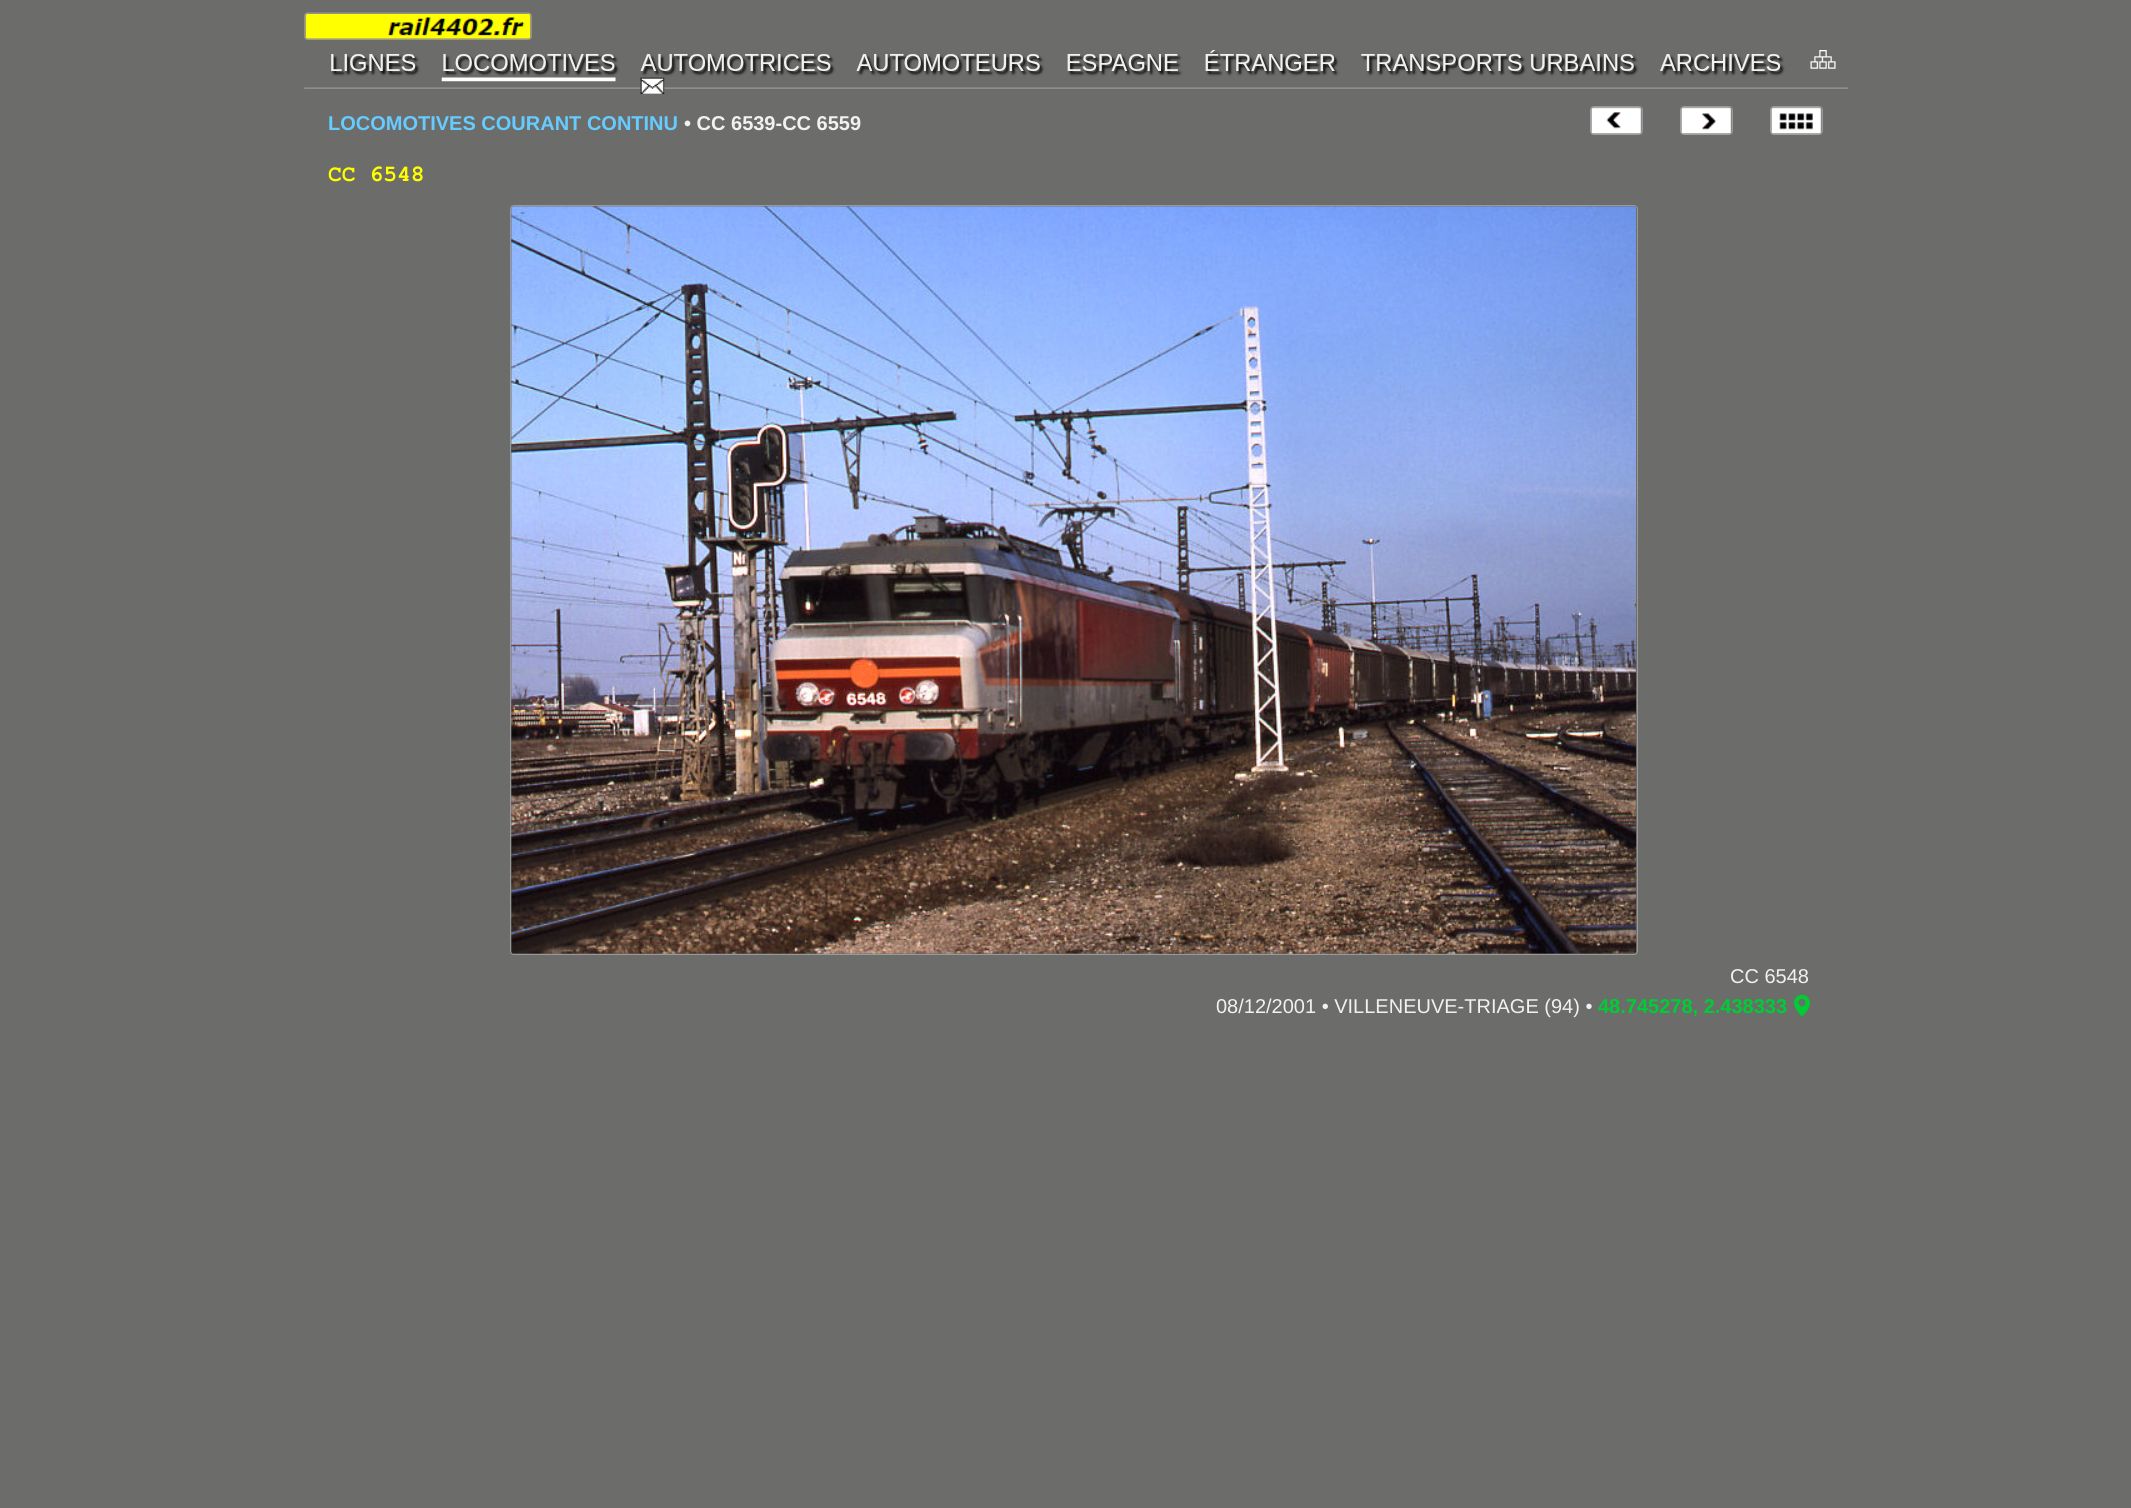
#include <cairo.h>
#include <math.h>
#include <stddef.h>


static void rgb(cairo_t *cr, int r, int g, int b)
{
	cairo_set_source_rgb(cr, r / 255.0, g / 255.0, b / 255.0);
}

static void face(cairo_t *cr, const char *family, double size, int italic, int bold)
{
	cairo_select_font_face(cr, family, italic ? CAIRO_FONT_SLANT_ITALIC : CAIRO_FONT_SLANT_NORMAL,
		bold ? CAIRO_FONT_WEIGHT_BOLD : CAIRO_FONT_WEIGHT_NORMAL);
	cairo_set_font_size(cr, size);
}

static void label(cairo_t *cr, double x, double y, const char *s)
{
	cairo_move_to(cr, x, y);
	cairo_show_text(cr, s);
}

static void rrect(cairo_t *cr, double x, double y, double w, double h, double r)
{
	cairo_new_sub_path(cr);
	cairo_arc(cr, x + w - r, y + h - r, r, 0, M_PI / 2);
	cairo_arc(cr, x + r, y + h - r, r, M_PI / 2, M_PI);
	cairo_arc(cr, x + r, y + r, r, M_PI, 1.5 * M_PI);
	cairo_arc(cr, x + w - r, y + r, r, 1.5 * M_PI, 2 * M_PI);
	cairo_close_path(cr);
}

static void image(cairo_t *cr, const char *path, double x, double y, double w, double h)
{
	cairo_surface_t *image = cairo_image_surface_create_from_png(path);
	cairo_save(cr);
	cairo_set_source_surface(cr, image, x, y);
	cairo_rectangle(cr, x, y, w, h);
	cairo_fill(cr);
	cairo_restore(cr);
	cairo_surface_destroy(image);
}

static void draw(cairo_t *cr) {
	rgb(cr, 108, 108, 107);
	cairo_paint(cr);
	image(cr, "image0.png", 304, 12, 1544, 82);
	face(cr, "Liberation Sans", 20, 0, 1);
	rgb(cr, 102, 204, 255);
	label(cr, 328, 130, "LOCOMOTIVES COURANT CONTINU");
	rgb(cr, 241, 241, 241);
	label(cr, 684, 130, "• CC 6539-CC 6559");
	rrect(cr, 1590.5, 106.5, 52, 28, 3.5);
	rgb(cr, 153, 153, 153);
	cairo_set_line_width(cr, 1);
	cairo_stroke(cr);
	image(cr, "image1.png", 1590, 107, 52, 28);
	rrect(cr, 1680.5, 106.5, 52, 28, 3.5);
	cairo_stroke(cr);
	image(cr, "image2.png", 1680, 107, 52, 28);
	rrect(cr, 1770.5, 106.5, 52, 28, 3.5);
	cairo_stroke(cr);
	image(cr, "image3.png", 1770, 107, 52, 28);
	face(cr, "FreeMono", 23, 0, 1);
	rgb(cr, 255, 255, 0);
	label(cr, 328, 181, "CC 6548");
	rrect(cr, 510.5, 205.5, 1127, 749, 3.5);
	rgb(cr, 153, 153, 153);
	cairo_stroke(cr);
	image(cr, "image4.png", 511, 206, 1126, 748);
	face(cr, "Liberation Sans", 20, 0, 0);
	rgb(cr, 241, 241, 241);
	label(cr, 1730, 983, "CC 6548");
	label(cr, 1216, 1013, "08/12/2001 • VILLENEUVE-TRIAGE (94) •");
	face(cr, "Liberation Sans", 20, 0, 1);
	rgb(cr, 0, 204, 51);
	label(cr, 1598, 1013, "48.745278, 2.438333");
	image(cr, "image5.png", 1793, 995, 17, 22);
}

int main(void) {
	cairo_surface_t *surface = cairo_image_surface_create(CAIRO_FORMAT_RGB24, 2131, 1508);
	cairo_t *cr = cairo_create(surface);
	cairo_font_options_t *options = cairo_font_options_create();
	cairo_font_options_set_hint_metrics(options, CAIRO_HINT_METRICS_OFF);
	cairo_font_options_set_hint_style(options, CAIRO_HINT_STYLE_NONE);
	cairo_set_font_options(cr, options);
	cairo_set_miter_limit(cr, 4);
	draw(cr);
	cairo_surface_write_to_png(surface, "render.png");
	cairo_font_options_destroy(options);
	cairo_destroy(cr);
	cairo_surface_destroy(surface);
	return 0;
}
